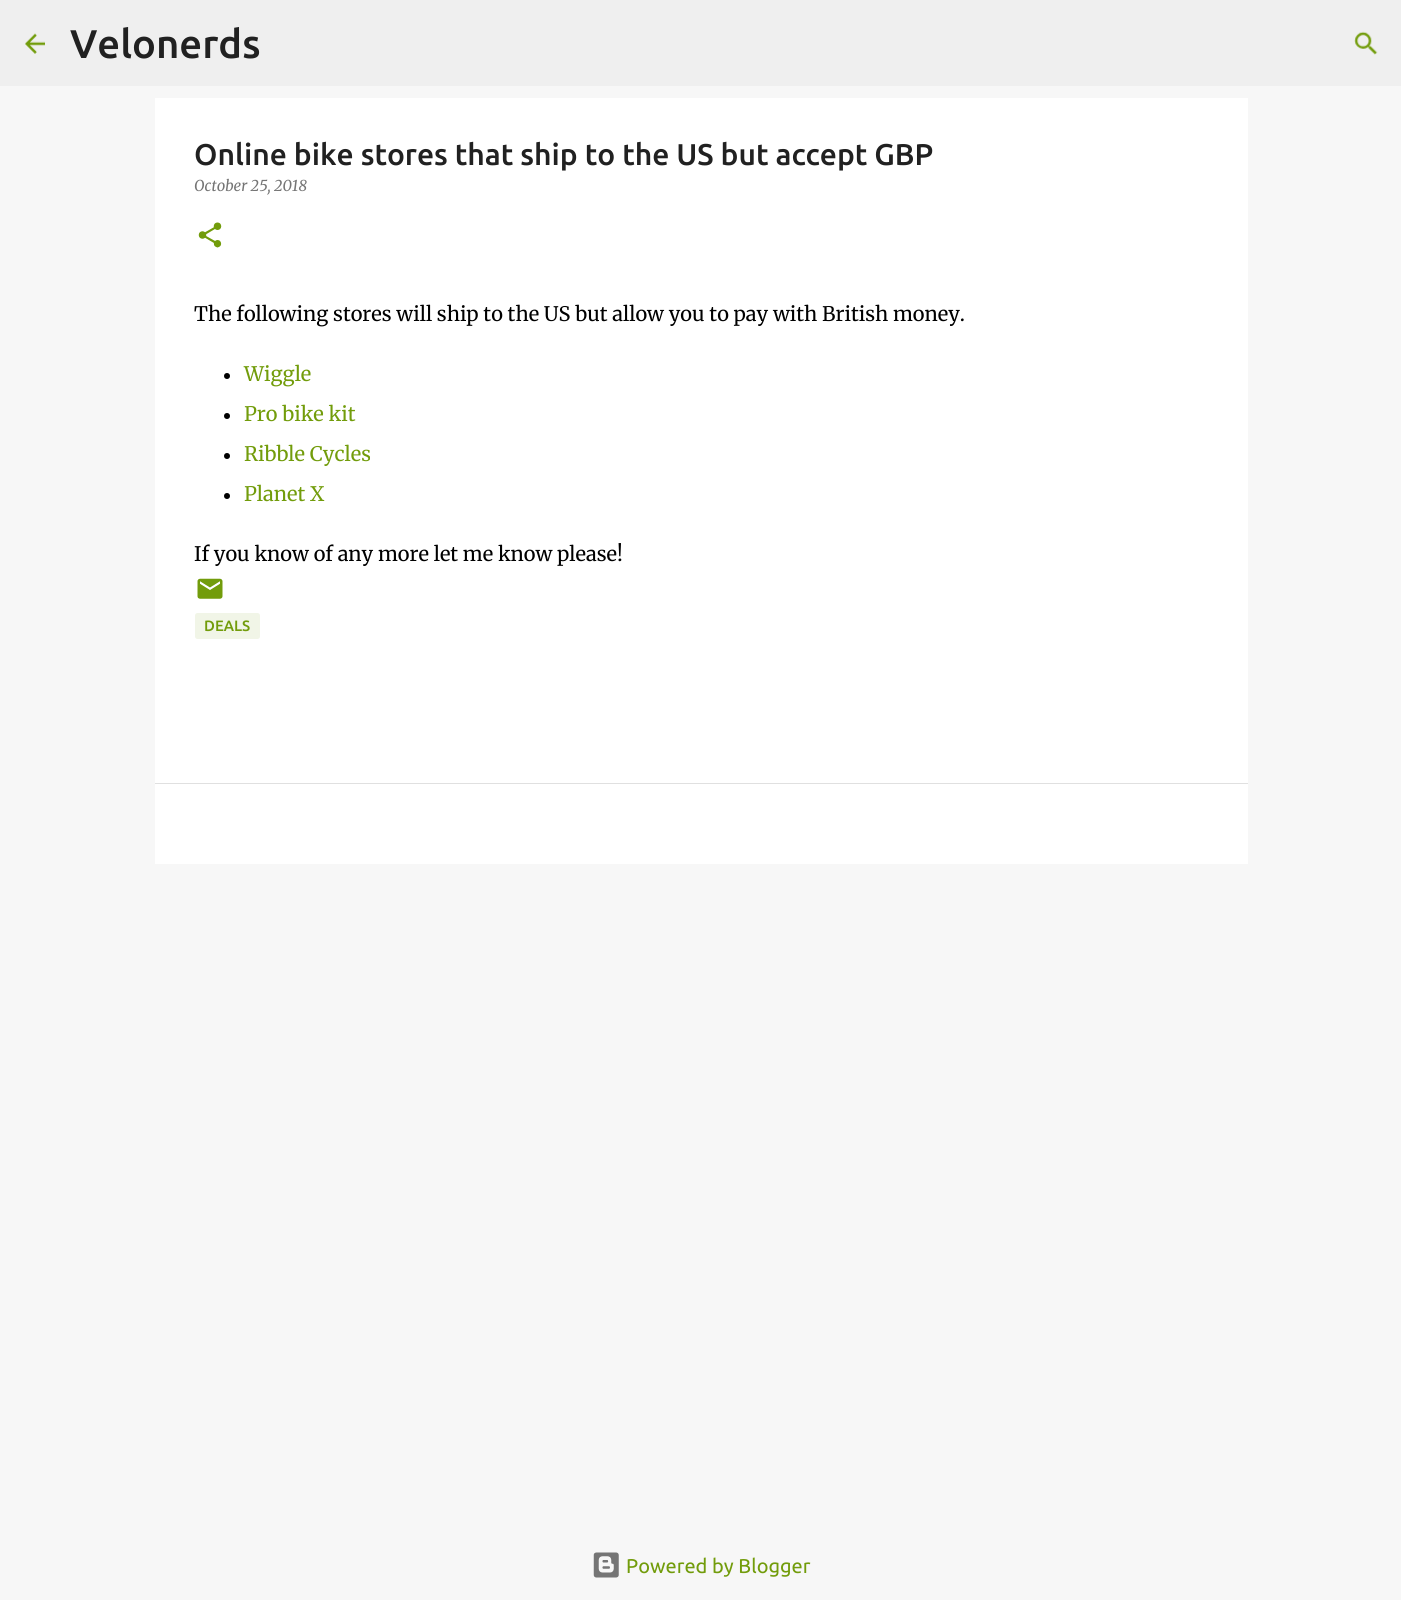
#include <cairo.h>
#include <math.h>
#include <stddef.h>


static void rgb(cairo_t *cr, int r, int g, int b)
{
	cairo_set_source_rgb(cr, r / 255.0, g / 255.0, b / 255.0);
}

static void face(cairo_t *cr, const char *family, double size, int italic, int bold)
{
	cairo_select_font_face(cr, family, italic ? CAIRO_FONT_SLANT_ITALIC : CAIRO_FONT_SLANT_NORMAL,
		bold ? CAIRO_FONT_WEIGHT_BOLD : CAIRO_FONT_WEIGHT_NORMAL);
	cairo_set_font_size(cr, size);
}

static void label(cairo_t *cr, double x, double y, const char *s)
{
	cairo_move_to(cr, x, y);
	cairo_show_text(cr, s);
}

static void rect(cairo_t *cr, double x, double y, double w, double h)
{
	cairo_rectangle(cr, x, y, w, h);
	cairo_fill(cr);
}

static void rrect(cairo_t *cr, double x, double y, double w, double h, double r)
{
	cairo_new_sub_path(cr);
	cairo_arc(cr, x + w - r, y + h - r, r, 0, M_PI / 2);
	cairo_arc(cr, x + r, y + h - r, r, M_PI / 2, M_PI);
	cairo_arc(cr, x + r, y + r, r, M_PI, 1.5 * M_PI);
	cairo_arc(cr, x + w - r, y + r, r, 1.5 * M_PI, 2 * M_PI);
	cairo_close_path(cr);
}

static void image(cairo_t *cr, const char *path, double x, double y, double w, double h)
{
	cairo_surface_t *image = cairo_image_surface_create_from_png(path);
	cairo_save(cr);
	cairo_set_source_surface(cr, image, x, y);
	cairo_rectangle(cr, x, y, w, h);
	cairo_fill(cr);
	cairo_restore(cr);
	cairo_surface_destroy(image);
}

static void draw(cairo_t *cr) {
	rgb(cr, 247, 247, 247);
	cairo_paint(cr);
	rgb(cr, 239, 239, 239);
	rect(cr, 0, 0, 1401, 86);
	image(cr, "image0.png", 25, 33, 20, 21);
	face(cr, "Ubuntu Medium", 40, 0, 0);
	rgb(cr, 33, 33, 33);
	label(cr, 70, 58, "Velonerds");
	image(cr, "image1.png", 1354, 31, 24, 24);
	rgb(cr, 255, 255, 255);
	rect(cr, 155, 98, 1093, 685);
	face(cr, "Ubuntu Medium", 30, 0, 0);
	rgb(cr, 33, 33, 33);
	label(cr, 194, 165, "Online bike stores that ship to the US but accept GBP");
	face(cr, "Merriweather", 15, 1, 0);
	rgb(cr, 117, 117, 117);
	label(cr, 194, 191, "October 25, 2018");
	image(cr, "image2.png", 198, 222, 24, 26);
	face(cr, "Merriweather Light", 20, 0, 0);
	rgb(cr, 0, 0, 0);
	label(cr, 194, 321, "The following stores will ship to the US but allow you to pay with British money.");
	cairo_new_path(cr);
	cairo_arc(cr, 227, 376, 3, 0, 2 * M_PI);
	cairo_fill(cr);
	rgb(cr, 114, 156, 11);
	label(cr, 244, 381, "Wiggle");
	rgb(cr, 0, 0, 0);
	cairo_new_path(cr);
	cairo_arc(cr, 227, 416, 3, 0, 2 * M_PI);
	cairo_fill(cr);
	rgb(cr, 114, 156, 11);
	label(cr, 244, 421, "Pro bike kit");
	rgb(cr, 0, 0, 0);
	cairo_new_path(cr);
	cairo_arc(cr, 227, 456, 3, 0, 2 * M_PI);
	cairo_fill(cr);
	rgb(cr, 114, 156, 11);
	label(cr, 244, 461, "Ribble Cycles");
	rgb(cr, 0, 0, 0);
	cairo_new_path(cr);
	cairo_arc(cr, 227, 496, 3, 0, 2 * M_PI);
	cairo_fill(cr);
	rgb(cr, 114, 156, 11);
	label(cr, 244, 501, "Planet X");
	rgb(cr, 0, 0, 0);
	label(cr, 194, 561, "If you know of any more let me know please!");
	image(cr, "image3.png", 197, 578, 26, 21);
	rgb(cr, 241, 245, 231);
	rrect(cr, 195, 613, 65, 26, 2.5);
	cairo_fill(cr);
	face(cr, "Ubuntu Medium", 15, 0, 0);
	rgb(cr, 114, 156, 11);
	label(cr, 204, 631, "DEALS");
	rgb(cr, 255, 255, 255);
	rect(cr, 155, 784, 1093, 80);
	rgb(cr, 224, 224, 224);
	rect(cr, 155, 783, 1093, 1);
	image(cr, "image4.png", 593, 1552, 26, 26);
	face(cr, "Ubuntu", 20, 0, 0);
	rgb(cr, 114, 156, 11);
	label(cr, 626, 1573, "Powered by Blogger");
}

int main(void) {
	cairo_surface_t *surface = cairo_image_surface_create(CAIRO_FORMAT_RGB24, 1401, 1600);
	cairo_t *cr = cairo_create(surface);
	cairo_font_options_t *options = cairo_font_options_create();
	cairo_font_options_set_hint_metrics(options, CAIRO_HINT_METRICS_OFF);
	cairo_font_options_set_hint_style(options, CAIRO_HINT_STYLE_NONE);
	cairo_set_font_options(cr, options);
	cairo_set_miter_limit(cr, 4);
	draw(cr);
	cairo_surface_write_to_png(surface, "render.png");
	cairo_font_options_destroy(options);
	cairo_destroy(cr);
	cairo_surface_destroy(surface);
	return 0;
}
